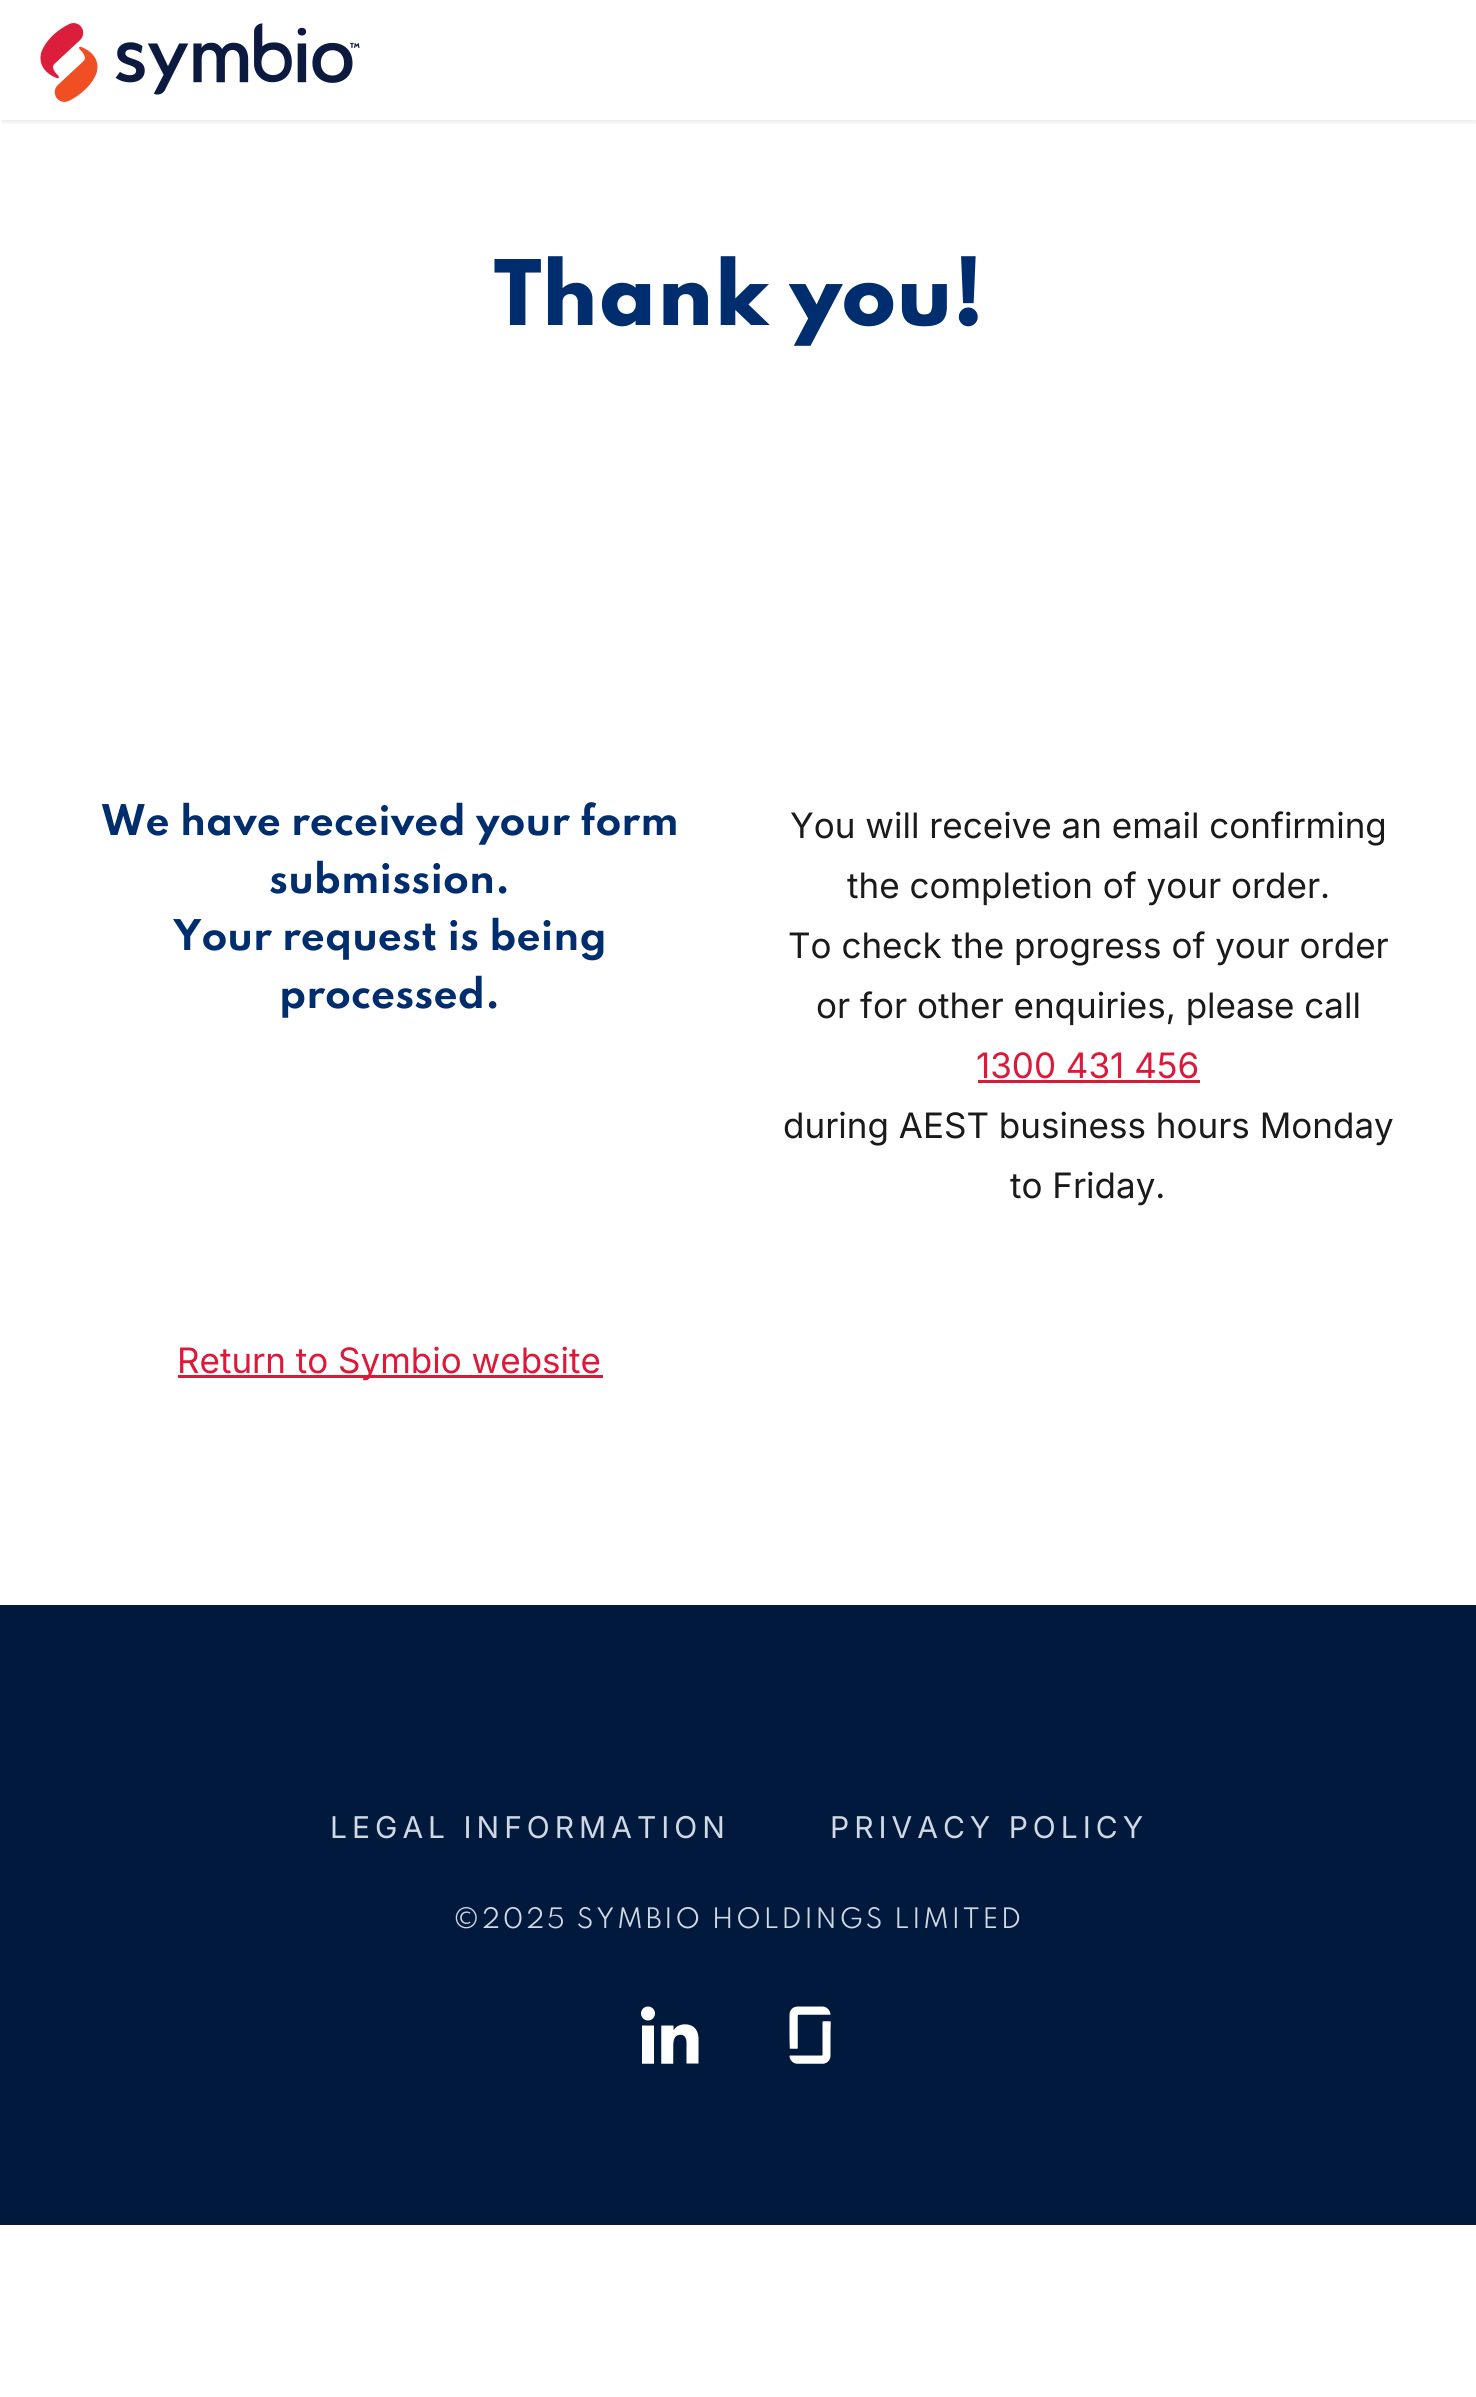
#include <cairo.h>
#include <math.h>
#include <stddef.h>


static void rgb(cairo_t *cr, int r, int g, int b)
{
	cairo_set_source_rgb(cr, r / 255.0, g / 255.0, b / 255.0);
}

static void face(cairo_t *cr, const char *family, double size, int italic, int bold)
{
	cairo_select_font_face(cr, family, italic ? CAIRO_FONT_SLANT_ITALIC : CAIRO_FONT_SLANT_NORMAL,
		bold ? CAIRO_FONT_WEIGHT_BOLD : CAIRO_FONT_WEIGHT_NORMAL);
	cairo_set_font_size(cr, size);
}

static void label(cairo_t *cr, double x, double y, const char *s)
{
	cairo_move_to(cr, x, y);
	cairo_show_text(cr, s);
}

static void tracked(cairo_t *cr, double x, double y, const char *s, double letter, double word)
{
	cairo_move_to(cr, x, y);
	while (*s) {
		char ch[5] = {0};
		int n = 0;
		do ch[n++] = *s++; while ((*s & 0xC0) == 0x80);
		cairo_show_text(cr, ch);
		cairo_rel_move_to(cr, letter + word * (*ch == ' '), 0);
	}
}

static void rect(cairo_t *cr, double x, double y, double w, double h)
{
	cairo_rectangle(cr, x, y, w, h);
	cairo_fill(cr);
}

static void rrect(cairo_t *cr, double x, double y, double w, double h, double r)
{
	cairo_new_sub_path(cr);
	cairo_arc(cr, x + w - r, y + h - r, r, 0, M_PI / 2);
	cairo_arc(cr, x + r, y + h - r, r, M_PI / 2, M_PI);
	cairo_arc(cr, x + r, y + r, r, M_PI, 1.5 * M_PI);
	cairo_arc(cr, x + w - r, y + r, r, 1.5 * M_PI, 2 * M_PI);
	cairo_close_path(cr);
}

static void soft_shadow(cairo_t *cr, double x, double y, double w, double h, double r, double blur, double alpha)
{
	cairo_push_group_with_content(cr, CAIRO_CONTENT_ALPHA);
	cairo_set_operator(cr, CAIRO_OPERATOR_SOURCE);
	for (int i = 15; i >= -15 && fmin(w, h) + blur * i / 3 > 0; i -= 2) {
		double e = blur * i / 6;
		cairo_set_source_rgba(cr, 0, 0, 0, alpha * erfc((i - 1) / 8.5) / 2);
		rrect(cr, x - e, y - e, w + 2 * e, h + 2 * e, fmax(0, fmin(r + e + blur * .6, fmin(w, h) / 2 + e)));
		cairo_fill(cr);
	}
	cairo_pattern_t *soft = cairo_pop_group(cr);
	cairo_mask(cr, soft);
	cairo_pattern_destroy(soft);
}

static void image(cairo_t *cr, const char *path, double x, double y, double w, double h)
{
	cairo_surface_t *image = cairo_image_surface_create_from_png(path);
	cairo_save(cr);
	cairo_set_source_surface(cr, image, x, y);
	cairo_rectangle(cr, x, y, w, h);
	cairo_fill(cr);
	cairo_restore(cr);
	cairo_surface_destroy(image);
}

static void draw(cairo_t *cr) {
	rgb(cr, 255, 255, 255);
	cairo_paint(cr);
	cairo_save(cr);
	cairo_rectangle(cr, 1, 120, 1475, 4);
	cairo_clip(cr);
	rgb(cr, 0, 0, 0);
	soft_shadow(cr, 3, 5, 1472, 115, 0, 4, 0.15);
	cairo_restore(cr);
	image(cr, "image0.png", 40, 23, 320, 79);
	face(cr, "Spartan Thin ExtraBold", 80, 0, 0);
	rgb(cr, 0, 45, 109);
	label(cr, 494, 325, "Thank you!");
	face(cr, "Spartan Thin", 37.5, 0, 1);
	label(cr, 101, 835, "We have received your form");
	label(cr, 269, 893, "submission.");
	label(cr, 173, 950, "Your request is being");
	label(cr, 279, 1008, "processed.");
	face(cr, "Inter", 35, 0, 0);
	rgb(cr, 26, 26, 26);
	label(cr, 790, 838, "You will receive an email confirming");
	label(cr, 847, 898, "the completion of your order.");
	label(cr, 788, 958, "To check the progress of your order");
	label(cr, 816, 1018, "or for other enquiries, please call");
	rgb(cr, 221, 25, 58);
	label(cr, 976, 1078, "1300 431 456");
	rect(cr, 978, 1080, 222, 3);
	rgb(cr, 26, 26, 26);
	label(cr, 783, 1138, "during AEST business hours Monday");
	label(cr, 1010, 1198, "to Friday.");
	rgb(cr, 221, 25, 58);
	rect(cr, 178, 1375, 425, 3);
	label(cr, 177, 1373, "Return to Symbio website");
	rgb(cr, 0, 25, 61);
	rect(cr, 0, 1605, 1476, 620);
	face(cr, "Inter", 30, 0, 0);
	rgb(cr, 207, 216, 227);
	tracked(cr, 330, 1838, "LEGAL INFORMATION", 5, 0);
	tracked(cr, 830, 1838, "PRIVACY POLICY", 5, 0);
	face(cr, "Spartan Thin", 25, 0, 0);
	tracked(cr, 453, 1928, "©2025 SYMBIO HOLDINGS LIMITED", 2.5, 0);
	image(cr, "image1.png", 641, 2006, 58, 58);
	image(cr, "image2.png", 789, 2006, 42, 58);
}

int main(void) {
	cairo_surface_t *surface = cairo_image_surface_create(CAIRO_FORMAT_RGB24, 1476, 2397);
	cairo_t *cr = cairo_create(surface);
	cairo_font_options_t *options = cairo_font_options_create();
	cairo_font_options_set_hint_metrics(options, CAIRO_HINT_METRICS_OFF);
	cairo_font_options_set_hint_style(options, CAIRO_HINT_STYLE_NONE);
	cairo_set_font_options(cr, options);
	cairo_set_miter_limit(cr, 4);
	draw(cr);
	cairo_surface_write_to_png(surface, "render.png");
	cairo_font_options_destroy(options);
	cairo_destroy(cr);
	cairo_surface_destroy(surface);
	return 0;
}
